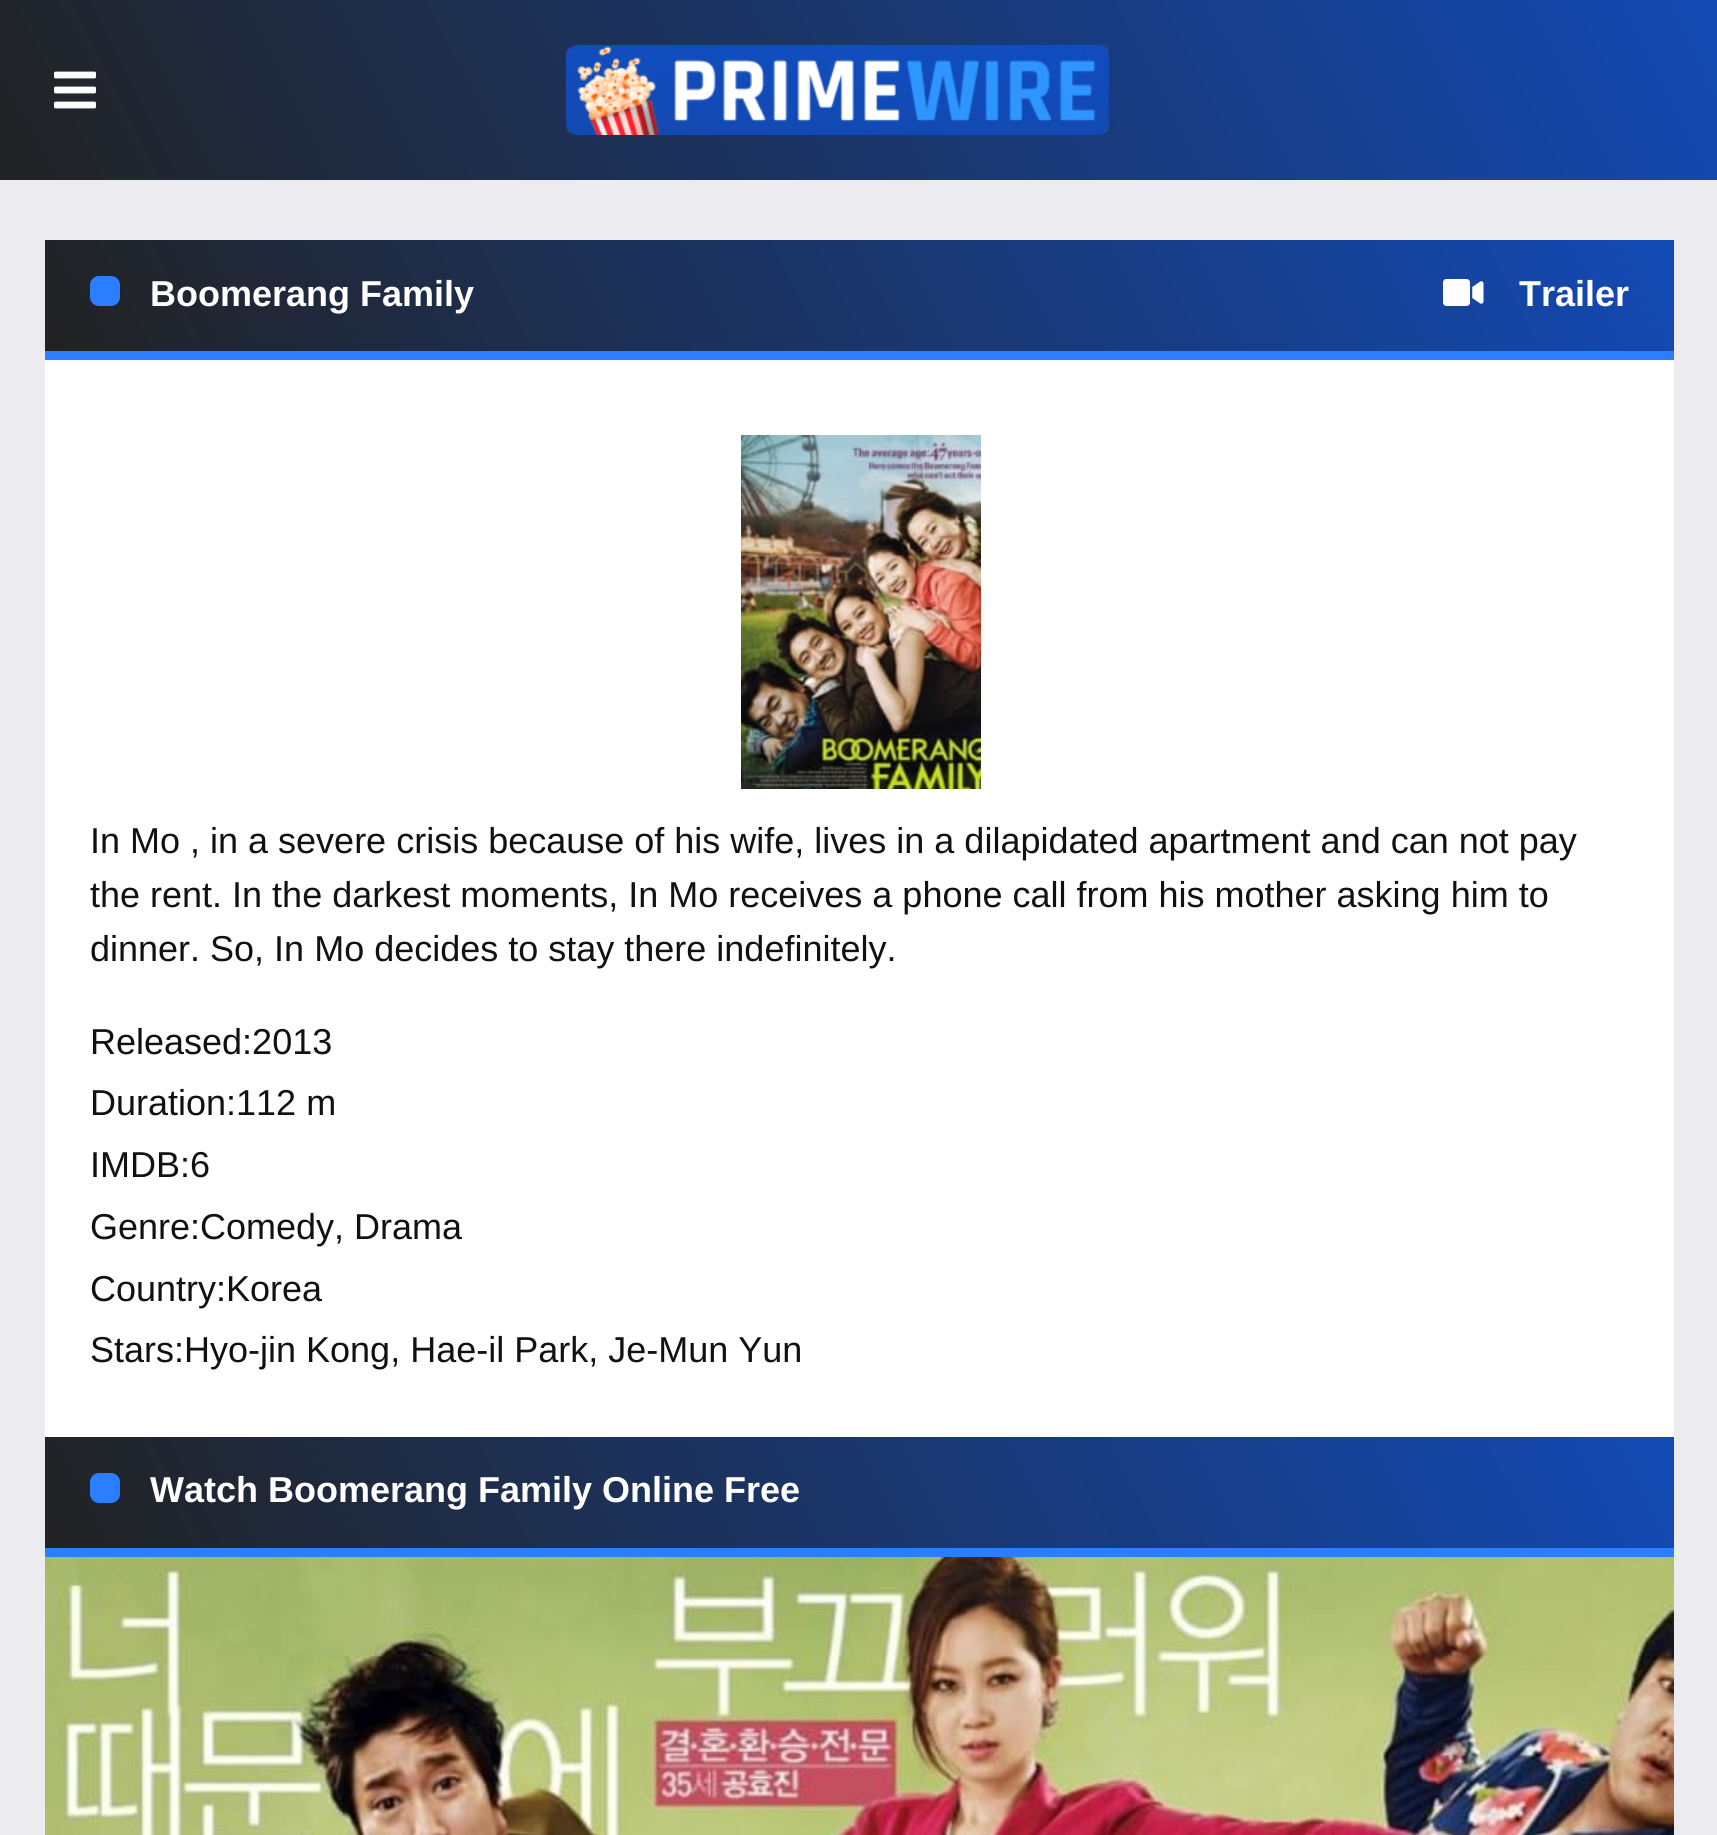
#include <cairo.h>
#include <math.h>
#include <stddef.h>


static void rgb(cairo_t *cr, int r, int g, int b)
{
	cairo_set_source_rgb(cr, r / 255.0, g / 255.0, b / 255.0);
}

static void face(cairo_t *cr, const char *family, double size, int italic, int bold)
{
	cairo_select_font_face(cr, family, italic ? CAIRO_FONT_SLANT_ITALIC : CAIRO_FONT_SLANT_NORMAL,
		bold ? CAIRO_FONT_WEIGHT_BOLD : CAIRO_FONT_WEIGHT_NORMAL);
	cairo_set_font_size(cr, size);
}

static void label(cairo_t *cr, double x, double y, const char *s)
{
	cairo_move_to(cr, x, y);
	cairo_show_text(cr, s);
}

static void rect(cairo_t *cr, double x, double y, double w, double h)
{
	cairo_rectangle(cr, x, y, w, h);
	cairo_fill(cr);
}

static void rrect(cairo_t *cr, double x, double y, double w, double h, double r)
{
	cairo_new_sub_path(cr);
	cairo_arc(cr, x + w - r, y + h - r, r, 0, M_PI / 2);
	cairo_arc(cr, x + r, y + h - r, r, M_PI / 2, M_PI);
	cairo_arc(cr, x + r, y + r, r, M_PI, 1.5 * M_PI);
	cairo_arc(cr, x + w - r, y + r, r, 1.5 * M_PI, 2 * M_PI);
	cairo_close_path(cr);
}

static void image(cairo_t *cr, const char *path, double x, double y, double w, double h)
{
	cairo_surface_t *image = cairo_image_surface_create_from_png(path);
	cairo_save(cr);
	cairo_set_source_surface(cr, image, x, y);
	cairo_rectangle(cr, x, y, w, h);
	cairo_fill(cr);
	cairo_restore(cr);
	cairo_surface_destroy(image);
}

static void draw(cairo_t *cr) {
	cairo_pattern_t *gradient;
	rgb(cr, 236, 236, 240);
	cairo_paint(cr);
	gradient = cairo_pattern_create_linear(129, 462, 1590, -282);
	cairo_pattern_add_color_stop_rgba(gradient, 0, 0.133, 0.133, 0.133, 1);
	cairo_pattern_add_color_stop_rgba(gradient, 1, 0.075, 0.29, 0.71, 1);
	cairo_set_source(cr, gradient);
	cairo_pattern_destroy(gradient);
	rect(cr, 0, 0, 1717, 180);
	image(cr, "image0.png", 54, 71, 42, 38);
	image(cr, "image1.png", 565, 45, 544, 90);
	rgb(cr, 255, 255, 255);
	rect(cr, 45, 360, 1629, 1077);
	gradient = cairo_pattern_create_linear(190, 636, 1529, -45);
	cairo_pattern_add_color_stop_rgba(gradient, 0, 0.133, 0.133, 0.133, 1);
	cairo_pattern_add_color_stop_rgba(gradient, 1, 0.075, 0.29, 0.71, 1);
	cairo_set_source(cr, gradient);
	cairo_pattern_destroy(gradient);
	rect(cr, 45, 240, 1629, 111);
	rgb(cr, 42, 126, 255);
	rect(cr, 45, 351, 1629, 9);
	rrect(cr, 90, 276, 30, 30, 9);
	cairo_fill(cr);
	face(cr, "Liberation Sans", 36, 0, 1);
	rgb(cr, 255, 255, 255);
	label(cr, 150, 306, "Boomerang Family");
	image(cr, "image2.png", 1443, 279, 41, 27);
	label(cr, 1519, 306, "Trailer");
	image(cr, "image3.png", 741, 435, 240, 354);
	face(cr, "Liberation Sans", 36, 0, 0);
	rgb(cr, 17, 17, 17);
	label(cr, 90, 853, "In Mo , in a severe crisis because of his wife, lives in a dilapidated apartment and can not pay");
	label(cr, 90, 907, "the rent. In the darkest moments, In Mo receives a phone call from his mother asking him to");
	label(cr, 90, 961, "dinner. So, In Mo decides to stay there indefinitely.");
	label(cr, 90, 1054, "Released:2013");
	label(cr, 90, 1115, "Duration:112 m");
	label(cr, 90, 1177, "IMDB:6");
	label(cr, 90, 1239, "Genre:Comedy, Drama");
	label(cr, 90, 1301, "Country:Korea");
	label(cr, 90, 1362, "Stars:Hyo-jin Kong, Hae-il Park, Je-Mun Yun");
	gradient = cairo_pattern_create_linear(190, 1833, 1529, 1152);
	cairo_pattern_add_color_stop_rgba(gradient, 0, 0.133, 0.133, 0.133, 1);
	cairo_pattern_add_color_stop_rgba(gradient, 1, 0.075, 0.29, 0.71, 1);
	cairo_set_source(cr, gradient);
	cairo_pattern_destroy(gradient);
	rect(cr, 45, 1437, 1629, 111);
	rgb(cr, 42, 126, 255);
	rect(cr, 45, 1548, 1629, 9);
	rrect(cr, 90, 1473, 30, 30, 9);
	cairo_fill(cr);
	face(cr, "Liberation Sans", 36, 0, 1);
	rgb(cr, 255, 255, 255);
	label(cr, 150, 1502, "Watch Boomerang Family Online Free");
	image(cr, "image4.png", 45, 1557, 1629, 278);
}

int main(void) {
	cairo_surface_t *surface = cairo_image_surface_create(CAIRO_FORMAT_RGB24, 1717, 1835);
	cairo_t *cr = cairo_create(surface);
	cairo_font_options_t *options = cairo_font_options_create();
	cairo_font_options_set_hint_metrics(options, CAIRO_HINT_METRICS_OFF);
	cairo_font_options_set_hint_style(options, CAIRO_HINT_STYLE_NONE);
	cairo_set_font_options(cr, options);
	cairo_set_miter_limit(cr, 4);
	draw(cr);
	cairo_surface_write_to_png(surface, "render.png");
	cairo_font_options_destroy(options);
	cairo_destroy(cr);
	cairo_surface_destroy(surface);
	return 0;
}
